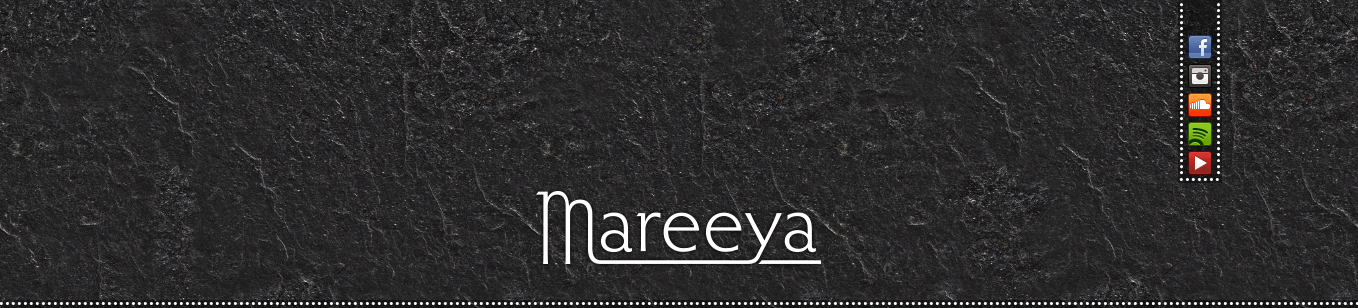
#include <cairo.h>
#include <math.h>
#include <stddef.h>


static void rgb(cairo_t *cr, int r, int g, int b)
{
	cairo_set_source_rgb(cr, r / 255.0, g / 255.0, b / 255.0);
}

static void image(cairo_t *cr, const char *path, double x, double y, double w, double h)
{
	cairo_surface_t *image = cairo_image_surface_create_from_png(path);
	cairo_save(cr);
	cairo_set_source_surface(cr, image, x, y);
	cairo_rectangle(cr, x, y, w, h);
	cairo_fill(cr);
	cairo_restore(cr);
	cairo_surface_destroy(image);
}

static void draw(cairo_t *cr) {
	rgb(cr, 255, 255, 255);
	cairo_paint(cr);
	image(cr, "image0.png", 0, 0, 1358, 308);
	image(cr, "image1.png", 1178, 0, 44, 175);
	image(cr, "image2.png", 1188, 35, 24, 24);
	image(cr, "image3.png", 1188, 64, 24, 24);
	image(cr, "image4.png", 1188, 93, 24, 24);
	image(cr, "image5.png", 1188, 122, 24, 24);
	image(cr, "image6.png", 1188, 151, 24, 24);
	image(cr, "image7.png", 1178, 175, 44, 8);
	image(cr, "image8.png", 535, 188, 289, 80);
	image(cr, "image9.png", 0, 300, 1358, 8);
}

int main(void) {
	cairo_surface_t *surface = cairo_image_surface_create(CAIRO_FORMAT_RGB24, 1358, 308);
	cairo_t *cr = cairo_create(surface);
	cairo_font_options_t *options = cairo_font_options_create();
	cairo_font_options_set_hint_metrics(options, CAIRO_HINT_METRICS_OFF);
	cairo_font_options_set_hint_style(options, CAIRO_HINT_STYLE_NONE);
	cairo_set_font_options(cr, options);
	cairo_set_miter_limit(cr, 4);
	draw(cr);
	cairo_surface_write_to_png(surface, "render.png");
	cairo_font_options_destroy(options);
	cairo_destroy(cr);
	cairo_surface_destroy(surface);
	return 0;
}
